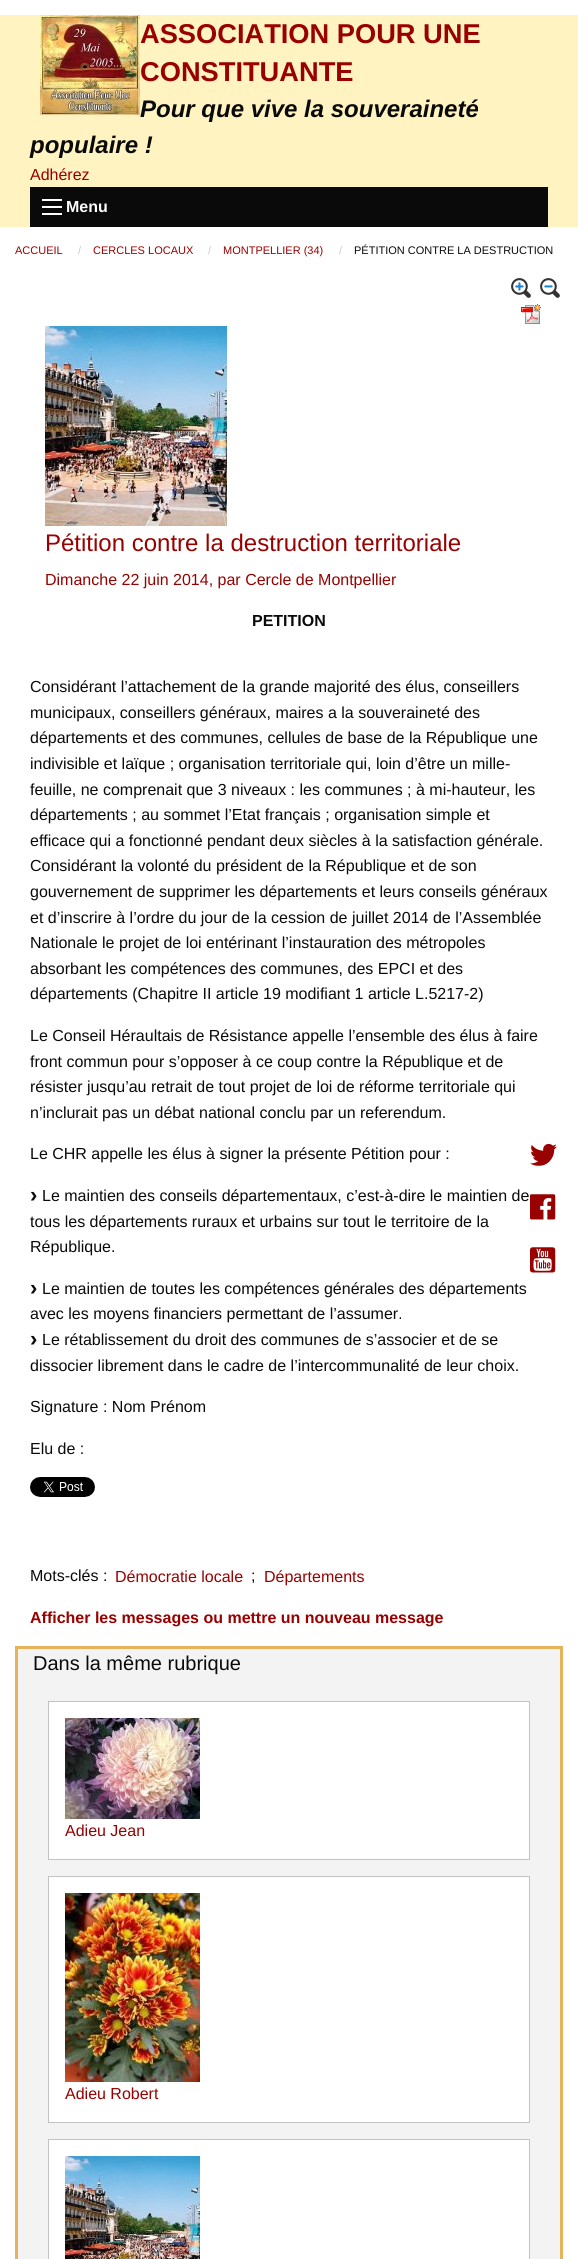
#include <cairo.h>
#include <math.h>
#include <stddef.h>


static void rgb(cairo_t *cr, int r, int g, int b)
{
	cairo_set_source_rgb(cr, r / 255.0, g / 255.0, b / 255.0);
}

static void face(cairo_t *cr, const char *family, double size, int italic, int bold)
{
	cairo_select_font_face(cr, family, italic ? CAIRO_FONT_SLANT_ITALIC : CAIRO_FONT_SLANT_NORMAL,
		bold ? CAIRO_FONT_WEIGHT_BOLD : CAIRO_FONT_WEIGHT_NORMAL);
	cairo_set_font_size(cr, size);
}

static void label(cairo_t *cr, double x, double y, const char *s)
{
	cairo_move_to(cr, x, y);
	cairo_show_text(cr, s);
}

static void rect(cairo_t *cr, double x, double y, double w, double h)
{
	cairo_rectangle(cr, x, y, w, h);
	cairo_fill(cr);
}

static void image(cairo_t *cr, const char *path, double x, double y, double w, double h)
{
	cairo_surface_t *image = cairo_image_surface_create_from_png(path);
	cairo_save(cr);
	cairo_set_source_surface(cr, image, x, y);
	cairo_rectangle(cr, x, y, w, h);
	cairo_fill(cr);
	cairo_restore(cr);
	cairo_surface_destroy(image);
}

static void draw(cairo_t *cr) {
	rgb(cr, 255, 255, 255);
	cairo_paint(cr);
	rgb(cr, 255, 243, 194);
	rect(cr, 0, 15, 578, 212);
	image(cr, "image0.png", 40, 15, 100, 100);
	face(cr, "Liberation Sans", 27.25, 0, 1);
	rgb(cr, 153, 0, 0);
	label(cr, 140, 43, "ASSOCIATION POUR UNE");
	label(cr, 140, 81, "CONSTITUANTE");
	face(cr, "Liberation Sans", 24, 1, 1);
	rgb(cr, 10, 10, 10);
	label(cr, 140, 117, "Pour que vive la souveraineté");
	label(cr, 30, 153, "populaire !");
	face(cr, "Liberation Sans", 16, 0, 0);
	rgb(cr, 153, 0, 0);
	label(cr, 30, 180, "Adhérez");
	rgb(cr, 10, 10, 10);
	rect(cr, 30, 187, 518, 40);
	rgb(cr, 254, 254, 254);
	rect(cr, 42, 213, 20, 2);
	rect(cr, 42, 206, 20, 2);
	rect(cr, 42, 199, 20, 2);
	face(cr, "Liberation Sans", 16, 0, 1);
	label(cr, 66, 212, "Menu");
	face(cr, "Liberation Sans", 11, 0, 0);
	rgb(cr, 153, 0, 0);
	label(cr, 15, 254, "ACCUEIL");
	rgb(cr, 202, 202, 202);
	label(cr, 78, 254, "/");
	rgb(cr, 153, 0, 0);
	label(cr, 93, 254, "CERCLES LOCAUX");
	rgb(cr, 202, 202, 202);
	label(cr, 208, 254, "/");
	rgb(cr, 153, 0, 0);
	label(cr, 223, 254, "MONTPELLIER (34)");
	rgb(cr, 202, 202, 202);
	label(cr, 339, 254, "/");
	rgb(cr, 10, 10, 10);
	label(cr, 354, 254, "PÉTITION CONTRE LA DESTRUCTION");
	image(cr, "image1.png", 511, 278, 20, 20);
	image(cr, "image2.png", 540, 278, 20, 20);
	image(cr, "image3.png", 521, 304, 20, 20);
	image(cr, "image4.png", 45, 326, 182, 200);
	face(cr, "Liberation Sans", 24, 0, 0);
	rgb(cr, 153, 0, 0);
	label(cr, 45, 551, "Pétition contre la destruction territoriale");
	face(cr, "Liberation Sans", 16, 0, 0);
	label(cr, 45, 585, "Dimanche 22 juin 2014, par Cercle de Montpellier");
	face(cr, "Liberation Sans", 16, 0, 1);
	rgb(cr, 10, 10, 10);
	label(cr, 252, 626, "PETITION");
	face(cr, "Liberation Sans", 16, 0, 0);
	label(cr, 30, 692, "Considérant l’attachement de la grande majorité des élus, conseillers");
	label(cr, 30, 718, "municipaux, conseillers généraux, maires a la souveraineté des");
	label(cr, 30, 743, "départements et des communes, cellules de base de la République une");
	label(cr, 30, 769, "indivisible et laïque ; organisation territoriale qui, loin d’être un mille-");
	label(cr, 30, 795, "feuille, ne comprenait que 3 niveaux : les communes ; à mi-hauteur, les");
	label(cr, 30, 820, "départements ; au sommet l’Etat français ; organisation simple et");
	label(cr, 30, 846, "efficace qui a fonctionné pendant deux siècles à la satisfaction générale.");
	label(cr, 30, 871, "Considérant la volonté du président de la République et de son");
	label(cr, 30, 897, "gouvernement de supprimer les départements et leurs conseils généraux");
	label(cr, 30, 923, "et d’inscrire à l’ordre du jour de la cession de juillet 2014 de l’Assemblée");
	label(cr, 30, 948, "Nationale le projet de loi entérinant l’instauration des métropoles");
	label(cr, 30, 974, "absorbant les compétences des communes, des EPCI et des");
	label(cr, 30, 999, "départements (Chapitre II article 19 modifiant 1 article L.5217-2)");
	label(cr, 30, 1041, "Le Conseil Héraultais de Résistance appelle l’ensemble des élus à faire");
	label(cr, 30, 1067, "front commun pour s’opposer à ce coup contre la République et de");
	label(cr, 30, 1092, "résister jusqu’au retrait de tout projet de loi de réforme territoriale qui");
	label(cr, 30, 1118, "n’inclurait pas un débat national conclu par un referendum.");
	label(cr, 30, 1159, "Le CHR appelle les élus à signer la présente Pétition pour :");
	face(cr, "Liberation Sans", 22, 0, 1);
	label(cr, 30, 1202, "›");
	face(cr, "Liberation Sans", 16, 0, 0);
	label(cr, 42, 1201, "Le maintien des conseils départementaux, c’est-à-dire le maintien de");
	label(cr, 30, 1227, "tous les départements ruraux et urbains sur tout le territoire de la");
	label(cr, 30, 1252, "République.");
	face(cr, "Liberation Sans", 22, 0, 1);
	label(cr, 30, 1295, "›");
	face(cr, "Liberation Sans", 16, 0, 0);
	label(cr, 42, 1294, "Le maintien de toutes les compétences générales des départements");
	label(cr, 30, 1319, "avec les moyens financiers permettant de l’assumer.");
	face(cr, "Liberation Sans", 22, 0, 1);
	label(cr, 30, 1346, "›");
	face(cr, "Liberation Sans", 16, 0, 0);
	label(cr, 42, 1345, "Le rétablissement du droit des communes de s’associer et de se");
	label(cr, 30, 1371, "dissocier librement dans le cadre de l’intercommunalité de leur choix.");
	label(cr, 30, 1412, "Signature : Nom Prénom");
	label(cr, 30, 1454, "Elu de :");
	image(cr, "image5.png", 30, 1477, 65, 20);
	label(cr, 30, 1581, "Mots-clés :");
	rgb(cr, 153, 0, 0);
	label(cr, 115, 1582, "Démocratie locale");
	rgb(cr, 10, 10, 10);
	label(cr, 251, 1581, ";");
	rgb(cr, 153, 0, 0);
	label(cr, 264, 1582, "Départements");
	face(cr, "Liberation Sans", 16, 0, 1);
	label(cr, 30, 1623, "Afficher les messages ou mettre un nouveau message");
	rgb(cr, 243, 243, 243);
	cairo_rectangle(cr, 16.5, 1647.5, 545, 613);
	cairo_fill_preserve(cr);
	rgb(cr, 230, 179, 90);
	cairo_set_line_width(cr, 3);
	cairo_stroke(cr);
	face(cr, "Liberation Sans", 20, 0, 0);
	rgb(cr, 10, 10, 10);
	label(cr, 33, 1670, "Dans la même rubrique");
	rgb(cr, 255, 255, 255);
	cairo_rectangle(cr, 48.5, 1701.5, 481, 158);
	cairo_fill_preserve(cr);
	rgb(cr, 194, 194, 194);
	cairo_set_line_width(cr, 1);
	cairo_stroke(cr);
	image(cr, "image6.png", 65, 1718, 135, 101);
	face(cr, "Liberation Sans", 16, 0, 0);
	rgb(cr, 153, 0, 0);
	label(cr, 65, 1836, "Adieu Jean");
	rgb(cr, 255, 255, 255);
	cairo_rectangle(cr, 48.5, 1876.5, 481, 246);
	cairo_fill_preserve(cr);
	rgb(cr, 194, 194, 194);
	cairo_stroke(cr);
	image(cr, "image7.png", 65, 1893, 135, 189);
	rgb(cr, 153, 0, 0);
	label(cr, 65, 2099, "Adieu Robert");
	rgb(cr, 255, 255, 255);
	cairo_rectangle(cr, 48.5, 2139.5, 481, 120);
	cairo_fill_preserve(cr);
	rgb(cr, 194, 194, 194);
	cairo_stroke(cr);
	image(cr, "image8.png", 65, 2156, 135, 103);
	image(cr, "image9.png", 530, 1143, 27, 23);
	image(cr, "image10.png", 530, 1194, 26, 26);
	image(cr, "image11.png", 530, 1247, 26, 26);
}

int main(void) {
	cairo_surface_t *surface = cairo_image_surface_create(CAIRO_FORMAT_RGB24, 578, 2259);
	cairo_t *cr = cairo_create(surface);
	cairo_font_options_t *options = cairo_font_options_create();
	cairo_font_options_set_hint_metrics(options, CAIRO_HINT_METRICS_OFF);
	cairo_font_options_set_hint_style(options, CAIRO_HINT_STYLE_NONE);
	cairo_set_font_options(cr, options);
	cairo_set_miter_limit(cr, 4);
	draw(cr);
	cairo_surface_write_to_png(surface, "render.png");
	cairo_font_options_destroy(options);
	cairo_destroy(cr);
	cairo_surface_destroy(surface);
	return 0;
}
